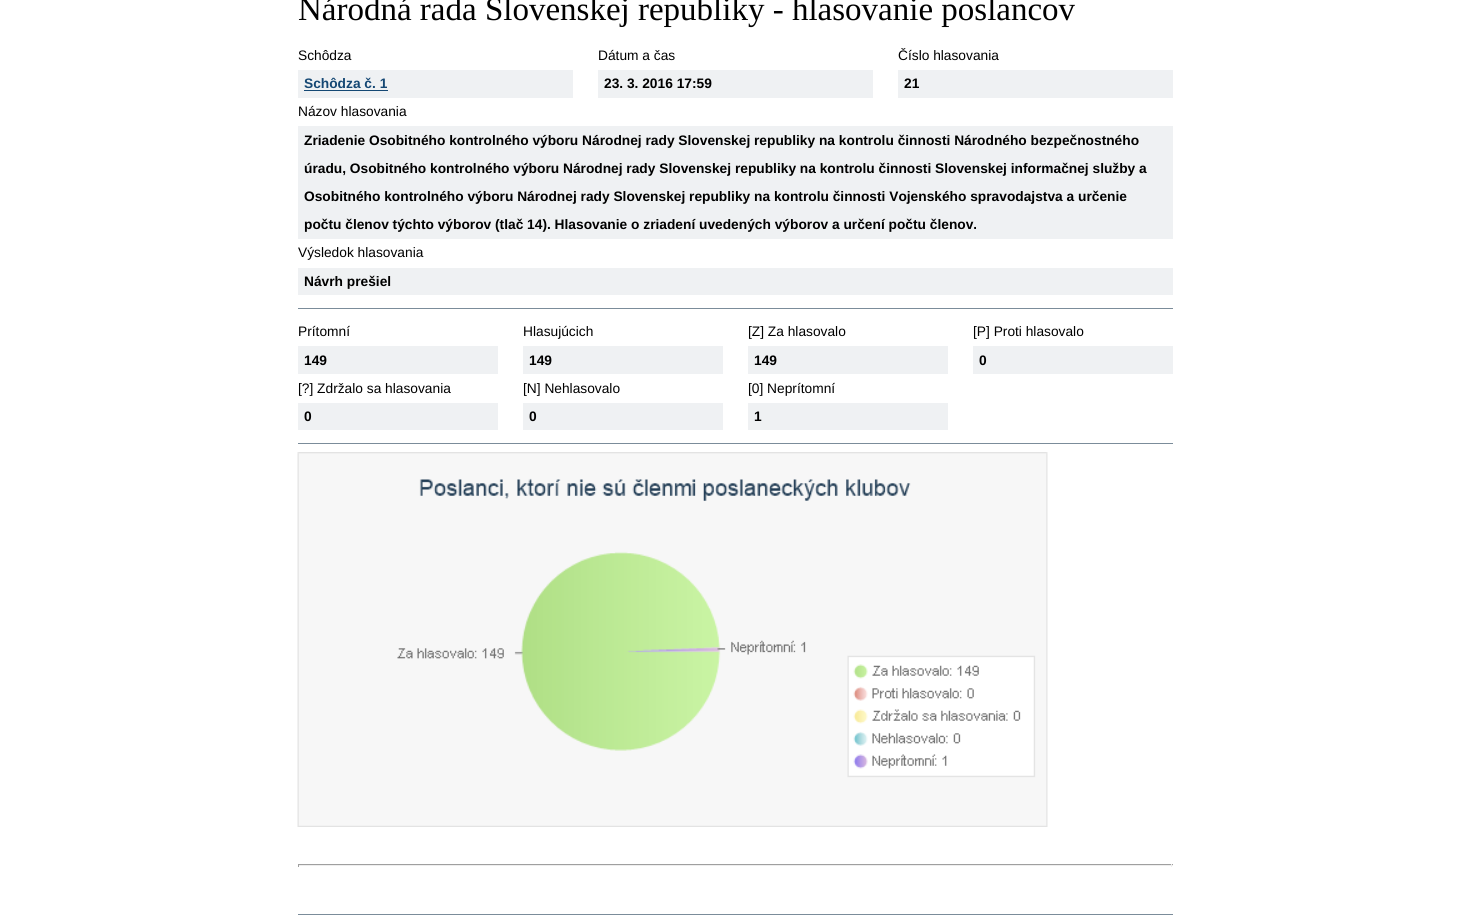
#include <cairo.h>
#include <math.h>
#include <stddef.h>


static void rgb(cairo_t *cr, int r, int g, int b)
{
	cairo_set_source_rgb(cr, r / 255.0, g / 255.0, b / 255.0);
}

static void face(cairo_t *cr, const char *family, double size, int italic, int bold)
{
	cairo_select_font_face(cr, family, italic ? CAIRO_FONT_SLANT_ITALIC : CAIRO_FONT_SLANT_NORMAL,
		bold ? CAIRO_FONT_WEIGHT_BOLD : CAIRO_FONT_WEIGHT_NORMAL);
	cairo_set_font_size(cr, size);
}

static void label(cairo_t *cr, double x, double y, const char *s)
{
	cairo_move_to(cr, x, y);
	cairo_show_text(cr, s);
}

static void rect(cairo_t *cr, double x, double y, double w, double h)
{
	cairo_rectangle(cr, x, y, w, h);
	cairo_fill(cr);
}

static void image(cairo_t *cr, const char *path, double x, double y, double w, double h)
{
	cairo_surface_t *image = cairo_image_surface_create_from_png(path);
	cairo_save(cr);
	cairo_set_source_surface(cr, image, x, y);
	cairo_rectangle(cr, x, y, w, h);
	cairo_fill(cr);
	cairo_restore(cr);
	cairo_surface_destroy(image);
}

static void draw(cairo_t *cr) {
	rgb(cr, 255, 255, 255);
	cairo_paint(cr);
	face(cr, "Liberation Serif", 33, 0, 0);
	rgb(cr, 0, 0, 0);
	label(cr, 298, 20, "Národná rada Slovenskej republiky - hlasovanie poslancov");
	rgb(cr, 123, 140, 154);
	rect(cr, 298, 308, 875, 1);
	face(cr, "Liberation Sans", 13.75, 0, 0);
	rgb(cr, 0, 0, 0);
	label(cr, 298, 60, "Schôdza");
	rgb(cr, 239, 241, 243);
	rect(cr, 298, 70, 275, 28);
	face(cr, "Liberation Sans", 13.75, 0, 1);
	rgb(cr, 21, 72, 116);
	label(cr, 304, 88, "Schôdza č. 1");
	rect(cr, 304, 90, 84, 1);
	face(cr, "Liberation Sans", 13.75, 0, 0);
	rgb(cr, 0, 0, 0);
	label(cr, 598, 60, "Dátum a čas");
	rgb(cr, 239, 241, 243);
	rect(cr, 598, 70, 275, 28);
	face(cr, "Liberation Sans", 13.75, 0, 1);
	rgb(cr, 0, 0, 0);
	label(cr, 604, 88, "23. 3. 2016 17:59");
	face(cr, "Liberation Sans", 13.75, 0, 0);
	label(cr, 898, 60, "Číslo hlasovania");
	rgb(cr, 239, 241, 243);
	rect(cr, 898, 70, 275, 28);
	face(cr, "Liberation Sans", 13.75, 0, 1);
	rgb(cr, 0, 0, 0);
	label(cr, 904, 88, "21");
	face(cr, "Liberation Sans", 13.75, 0, 0);
	label(cr, 298, 116, "Názov hlasovania");
	rgb(cr, 239, 241, 243);
	rect(cr, 298, 126, 875, 113);
	face(cr, "Liberation Sans", 13.75, 0, 1);
	rgb(cr, 0, 0, 0);
	label(cr, 304, 145, "Zriadenie Osobitného kontrolného výboru Národnej rady Slovenskej republiky na kontrolu činnosti Národného bezpečnostného");
	label(cr, 304, 173, "úradu, Osobitného kontrolného výboru Národnej rady Slovenskej republiky na kontrolu činnosti Slovenskej informačnej služby a");
	label(cr, 304, 201, "Osobitného kontrolného výboru Národnej rady Slovenskej republiky na kontrolu činnosti Vojenského spravodajstva a určenie");
	label(cr, 304, 229, "počtu členov týchto výborov (tlač 14). Hlasovanie o zriadení uvedených výborov a určení počtu členov.");
	face(cr, "Liberation Sans", 13.75, 0, 0);
	label(cr, 298, 257, "Výsledok hlasovania");
	rgb(cr, 239, 241, 243);
	rect(cr, 298, 268, 875, 27);
	face(cr, "Liberation Sans", 13.75, 0, 1);
	rgb(cr, 0, 0, 0);
	label(cr, 304, 286, "Návrh prešiel");
	rgb(cr, 123, 140, 154);
	rect(cr, 298, 443, 875, 1);
	face(cr, "Liberation Sans", 13.75, 0, 0);
	rgb(cr, 0, 0, 0);
	label(cr, 298, 336, "Prítomní");
	rgb(cr, 239, 241, 243);
	rect(cr, 298, 346, 200, 28);
	face(cr, "Liberation Sans", 13.75, 0, 1);
	rgb(cr, 0, 0, 0);
	label(cr, 304, 365, "149");
	face(cr, "Liberation Sans", 13.75, 0, 0);
	label(cr, 523, 336, "Hlasujúcich");
	rgb(cr, 239, 241, 243);
	rect(cr, 523, 346, 200, 28);
	face(cr, "Liberation Sans", 13.75, 0, 1);
	rgb(cr, 0, 0, 0);
	label(cr, 529, 365, "149");
	face(cr, "Liberation Sans", 13.75, 0, 0);
	label(cr, 748, 336, "[Z] Za hlasovalo");
	rgb(cr, 239, 241, 243);
	rect(cr, 748, 346, 200, 28);
	face(cr, "Liberation Sans", 13.75, 0, 1);
	rgb(cr, 0, 0, 0);
	label(cr, 754, 365, "149");
	face(cr, "Liberation Sans", 13.75, 0, 0);
	label(cr, 973, 336, "[P] Proti hlasovalo");
	rgb(cr, 239, 241, 243);
	rect(cr, 973, 346, 200, 28);
	face(cr, "Liberation Sans", 13.75, 0, 1);
	rgb(cr, 0, 0, 0);
	label(cr, 979, 365, "0");
	face(cr, "Liberation Sans", 13.75, 0, 0);
	label(cr, 298, 393, "[?] Zdržalo sa hlasovania");
	rgb(cr, 239, 241, 243);
	rect(cr, 298, 403, 200, 27);
	face(cr, "Liberation Sans", 13.75, 0, 1);
	rgb(cr, 0, 0, 0);
	label(cr, 304, 421, "0");
	face(cr, "Liberation Sans", 13.75, 0, 0);
	label(cr, 523, 393, "[N] Nehlasovalo");
	rgb(cr, 239, 241, 243);
	rect(cr, 523, 403, 200, 27);
	face(cr, "Liberation Sans", 13.75, 0, 1);
	rgb(cr, 0, 0, 0);
	label(cr, 529, 421, "0");
	face(cr, "Liberation Sans", 13.75, 0, 0);
	label(cr, 748, 393, "[0] Neprítomní");
	rgb(cr, 239, 241, 243);
	rect(cr, 748, 403, 200, 27);
	face(cr, "Liberation Sans", 13.75, 0, 1);
	rgb(cr, 0, 0, 0);
	label(cr, 754, 421, "1");
	image(cr, "image0.png", 297, 452, 751, 375);
	rgb(cr, 159, 159, 159);
	rect(cr, 298, 864, 875, 1);
	rgb(cr, 238, 238, 238);
	rect(cr, 1171, 864, 1, 3);
	rect(cr, 298, 865, 875, 1);
	rgb(cr, 159, 159, 159);
	rect(cr, 298, 864, 1, 3);
	rgb(cr, 123, 140, 154);
	rect(cr, 298, 914, 875, 1);
}

int main(void) {
	cairo_surface_t *surface = cairo_image_surface_create(CAIRO_FORMAT_RGB24, 1469, 924);
	cairo_t *cr = cairo_create(surface);
	cairo_font_options_t *options = cairo_font_options_create();
	cairo_font_options_set_hint_metrics(options, CAIRO_HINT_METRICS_OFF);
	cairo_font_options_set_hint_style(options, CAIRO_HINT_STYLE_NONE);
	cairo_set_font_options(cr, options);
	cairo_set_miter_limit(cr, 4);
	draw(cr);
	cairo_surface_write_to_png(surface, "render.png");
	cairo_font_options_destroy(options);
	cairo_destroy(cr);
	cairo_surface_destroy(surface);
	return 0;
}
